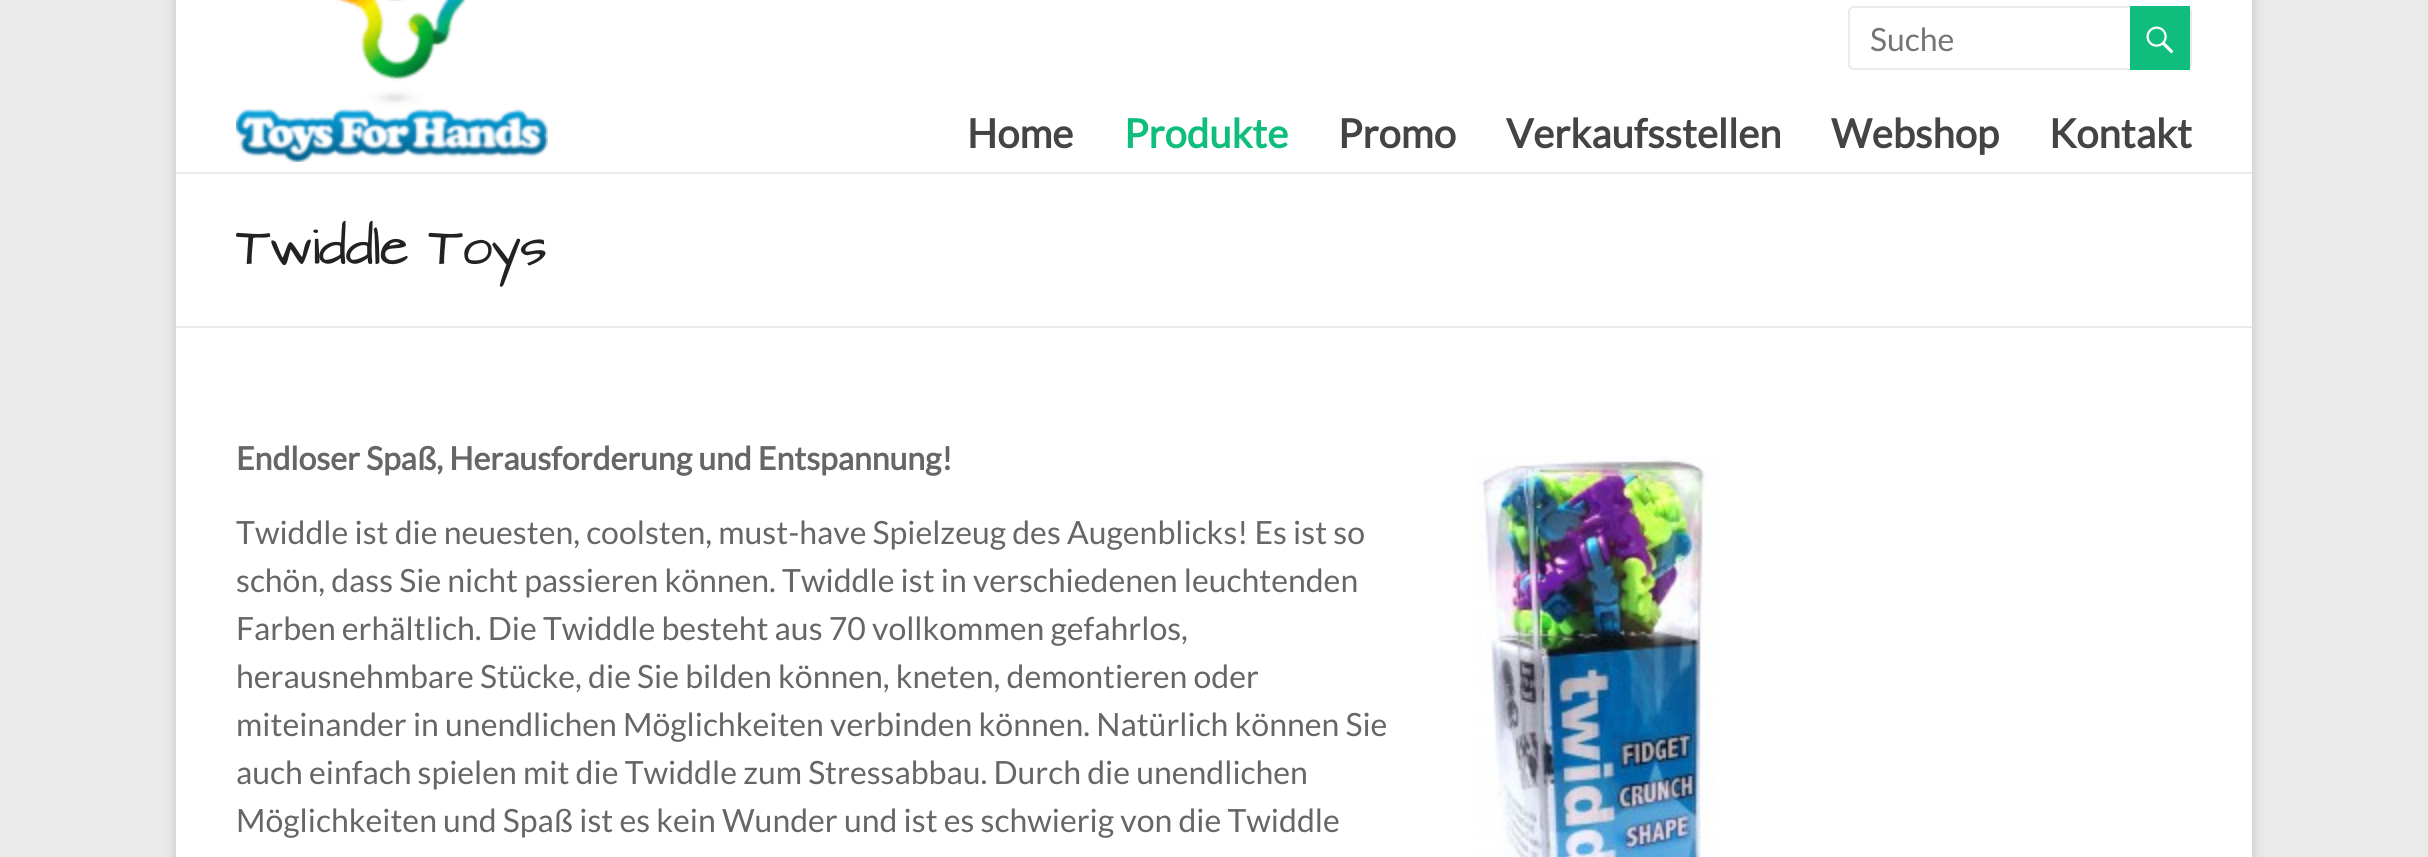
#include <cairo.h>
#include <math.h>
#include <stddef.h>


static void rgb(cairo_t *cr, int r, int g, int b)
{
	cairo_set_source_rgb(cr, r / 255.0, g / 255.0, b / 255.0);
}

static void face(cairo_t *cr, const char *family, double size, int italic, int bold)
{
	cairo_select_font_face(cr, family, italic ? CAIRO_FONT_SLANT_ITALIC : CAIRO_FONT_SLANT_NORMAL,
		bold ? CAIRO_FONT_WEIGHT_BOLD : CAIRO_FONT_WEIGHT_NORMAL);
	cairo_set_font_size(cr, size);
}

static void label(cairo_t *cr, double x, double y, const char *s)
{
	cairo_move_to(cr, x, y);
	cairo_show_text(cr, s);
}

static void tracked(cairo_t *cr, double x, double y, const char *s, double letter, double word)
{
	cairo_move_to(cr, x, y);
	while (*s) {
		char ch[5] = {0};
		int n = 0;
		do ch[n++] = *s++; while ((*s & 0xC0) == 0x80);
		cairo_show_text(cr, ch);
		cairo_rel_move_to(cr, letter + word * (*ch == ' '), 0);
	}
}

static void rect(cairo_t *cr, double x, double y, double w, double h)
{
	cairo_rectangle(cr, x, y, w, h);
	cairo_fill(cr);
}

static void rrect(cairo_t *cr, double x, double y, double w, double h, double r)
{
	cairo_new_sub_path(cr);
	cairo_arc(cr, x + w - r, y + h - r, r, 0, M_PI / 2);
	cairo_arc(cr, x + r, y + h - r, r, M_PI / 2, M_PI);
	cairo_arc(cr, x + r, y + r, r, M_PI, 1.5 * M_PI);
	cairo_arc(cr, x + w - r, y + r, r, 1.5 * M_PI, 2 * M_PI);
	cairo_close_path(cr);
}

static void soft_shadow(cairo_t *cr, double x, double y, double w, double h, double r, double blur, double alpha)
{
	cairo_push_group_with_content(cr, CAIRO_CONTENT_ALPHA);
	cairo_set_operator(cr, CAIRO_OPERATOR_SOURCE);
	for (int i = 15; i >= -15 && fmin(w, h) + blur * i / 3 > 0; i -= 2) {
		double e = blur * i / 6;
		cairo_set_source_rgba(cr, 0, 0, 0, alpha * erfc((i - 1) / 8.5) / 2);
		rrect(cr, x - e, y - e, w + 2 * e, h + 2 * e, fmax(0, fmin(r + e + blur * .6, fmin(w, h) / 2 + e)));
		cairo_fill(cr);
	}
	cairo_pattern_t *soft = cairo_pop_group(cr);
	cairo_mask(cr, soft);
	cairo_pattern_destroy(soft);
}

static void image(cairo_t *cr, const char *path, double x, double y, double w, double h)
{
	cairo_surface_t *image = cairo_image_surface_create_from_png(path);
	cairo_save(cr);
	cairo_set_source_surface(cr, image, x, y);
	cairo_rectangle(cr, x, y, w, h);
	cairo_fill(cr);
	cairo_restore(cr);
	cairo_surface_destroy(image);
}

static void draw(cairo_t *cr) {
	rgb(cr, 234, 234, 234);
	cairo_paint(cr);
	rgb(cr, 100, 100, 100);
	soft_shadow(cr, 176, -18, 2076, 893, 0, 6, 0.3);
	rgb(cr, 255, 255, 255);
	rect(cr, 176, 0, 2076, 857);
	rgb(cr, 234, 234, 234);
	rect(cr, 176, 172, 2076, 2);
	image(cr, "image0.png", 236, 0, 312, 162);
	rrect(cr, 1849, 7, 342, 62, 5);
	cairo_stroke(cr);
	face(cr, "Lato", 32, 0, 0);
	rgb(cr, 117, 117, 117);
	label(cr, 1870, 51, "Suche");
	rgb(cr, 15, 190, 124);
	rect(cr, 2130, 6, 60, 64);
	image(cr, "image1.png", 2146, 26, 28, 28);
	face(cr, "Lato", 40, 0, 1);
	rgb(cr, 68, 68, 68);
	label(cr, 967, 148, "Home");
	rgb(cr, 15, 190, 124);
	label(cr, 1124, 148, "Produkte");
	rgb(cr, 68, 68, 68);
	label(cr, 1338, 148, "Promo");
	label(cr, 1506, 148, "Verkaufsstellen");
	label(cr, 1831, 148, "Webshop");
	label(cr, 2049, 148, "Kontakt");
	rgb(cr, 234, 234, 234);
	rect(cr, 176, 326, 2076, 2);
	face(cr, "Architects Daughter", 44, 0, 0);
	rgb(cr, 34, 34, 34);
	tracked(cr, 236, 264, "Twiddle Toys", -1.4, 0);
	face(cr, "Lato", 32, 0, 1);
	rgb(cr, 102, 102, 102);
	label(cr, 236, 470, "Endloser Spaß, Herausforderung und Entspannung!");
	image(cr, "image2.png", 1473, 455, 246, 402);
	face(cr, "Lato", 32, 0, 0);
	label(cr, 236, 544, "Twiddle ist die neuesten, coolsten, must-have Spielzeug des Augenblicks! Es ist so");
	label(cr, 236, 592, "schön, dass Sie nicht passieren können. Twiddle ist in verschiedenen leuchtenden");
	label(cr, 236, 640, "Farben erhältlich. Die Twiddle besteht aus 70 vollkommen gefahrlos,");
	label(cr, 236, 688, "herausnehmbare Stücke, die Sie bilden können, kneten, demontieren oder");
	label(cr, 236, 736, "miteinander in unendlichen Möglichkeiten verbinden können. Natürlich können Sie");
	label(cr, 236, 784, "auch einfach spielen mit die Twiddle zum Stressabbau. Durch die unendlichen");
	label(cr, 236, 832, "Möglichkeiten und Spaß ist es kein Wunder und ist es schwierig von die Twiddle");
}

int main(void) {
	cairo_surface_t *surface = cairo_image_surface_create(CAIRO_FORMAT_RGB24, 2428, 857);
	cairo_t *cr = cairo_create(surface);
	cairo_font_options_t *options = cairo_font_options_create();
	cairo_font_options_set_hint_metrics(options, CAIRO_HINT_METRICS_OFF);
	cairo_font_options_set_hint_style(options, CAIRO_HINT_STYLE_NONE);
	cairo_set_font_options(cr, options);
	cairo_set_miter_limit(cr, 4);
	draw(cr);
	cairo_surface_write_to_png(surface, "render.png");
	cairo_font_options_destroy(options);
	cairo_destroy(cr);
	cairo_surface_destroy(surface);
	return 0;
}
